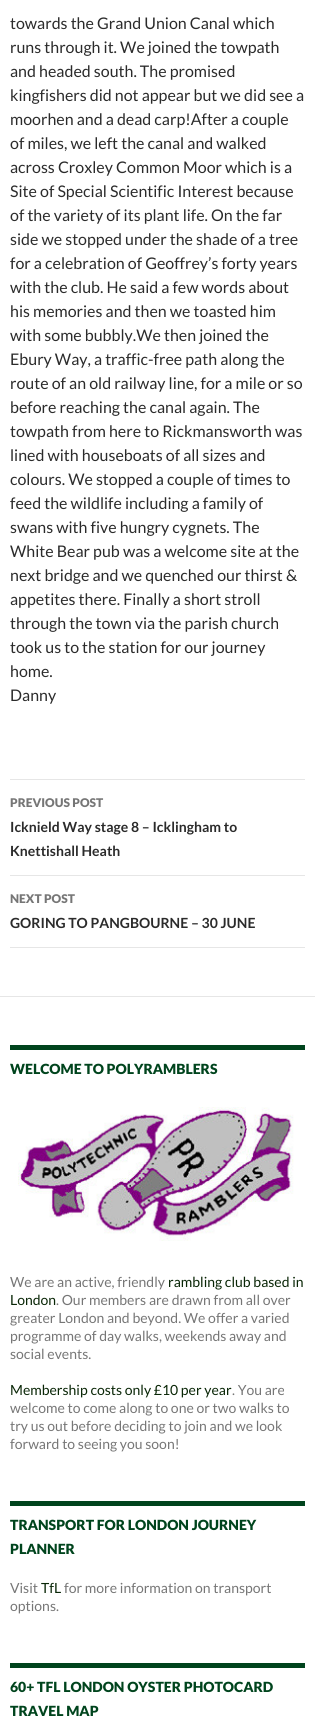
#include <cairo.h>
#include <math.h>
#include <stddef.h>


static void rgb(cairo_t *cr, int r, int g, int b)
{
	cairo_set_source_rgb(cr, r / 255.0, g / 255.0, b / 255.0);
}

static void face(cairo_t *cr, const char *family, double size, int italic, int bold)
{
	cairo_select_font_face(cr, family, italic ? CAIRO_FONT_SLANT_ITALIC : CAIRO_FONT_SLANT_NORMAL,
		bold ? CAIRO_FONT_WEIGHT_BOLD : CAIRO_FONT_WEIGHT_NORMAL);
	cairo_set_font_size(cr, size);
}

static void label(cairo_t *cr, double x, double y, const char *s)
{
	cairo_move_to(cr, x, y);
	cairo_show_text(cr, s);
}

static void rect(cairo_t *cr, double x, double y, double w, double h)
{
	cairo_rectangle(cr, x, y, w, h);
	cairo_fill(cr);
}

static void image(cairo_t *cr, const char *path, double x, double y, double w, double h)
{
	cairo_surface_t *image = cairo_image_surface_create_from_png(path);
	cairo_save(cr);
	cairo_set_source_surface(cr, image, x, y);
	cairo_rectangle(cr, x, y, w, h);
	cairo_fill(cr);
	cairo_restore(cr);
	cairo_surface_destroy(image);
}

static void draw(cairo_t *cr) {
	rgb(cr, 255, 255, 255);
	cairo_paint(cr);
	face(cr, "Lato", 16, 0, 0);
	rgb(cr, 43, 43, 43);
	label(cr, 10, 29, "towards the Grand Union Canal which");
	label(cr, 10, 53, "runs through it. We joined the towpath");
	label(cr, 10, 77, "and headed south. The promised");
	label(cr, 10, 101, "kingfishers did not appear but we did see a");
	label(cr, 10, 125, "moorhen and a dead carp!After a couple");
	label(cr, 10, 149, "of miles, we left the canal and walked");
	label(cr, 10, 173, "across Croxley Common Moor which is a");
	label(cr, 10, 197, "Site of Special Scientific Interest because");
	label(cr, 10, 221, "of the variety of its plant life. On the far");
	label(cr, 10, 245, "side we stopped under the shade of a tree");
	label(cr, 10, 269, "for a celebration of Geoffrey’s forty years");
	label(cr, 10, 293, "with the club. He said a few words about");
	label(cr, 10, 317, "his memories and then we toasted him");
	label(cr, 10, 341, "with some bubbly.We then joined the");
	label(cr, 10, 365, "Ebury Way, a traffic-free path along the");
	label(cr, 10, 389, "route of an old railway line, for a mile or so");
	label(cr, 10, 413, "before reaching the canal again. The");
	label(cr, 10, 437, "towpath from here to Rickmansworth was");
	label(cr, 10, 461, "lined with houseboats of all sizes and");
	label(cr, 10, 485, "colours. We stopped a couple of times to");
	label(cr, 10, 509, "feed the wildlife including a family of");
	label(cr, 10, 533, "swans with five hungry cygnets. The");
	label(cr, 10, 557, "White Bear pub was a welcome site at the");
	label(cr, 10, 581, "next bridge and we quenched our thirst &");
	label(cr, 10, 605, "appetites there. Finally a short stroll");
	label(cr, 10, 629, "through the town via the parish church");
	label(cr, 10, 653, "took us to the station for our journey");
	label(cr, 10, 677, "home.");
	label(cr, 10, 701, "Danny");
	rgb(cr, 230, 230, 230);
	rect(cr, 10, 779, 295, 1);
	rect(cr, 10, 875, 295, 1);
	face(cr, "Lato Black", 12, 0, 0);
	rgb(cr, 118, 118, 118);
	label(cr, 10, 807, "PREVIOUS POST");
	face(cr, "Lato", 14, 0, 1);
	rgb(cr, 43, 43, 43);
	label(cr, 10, 832, "Icknield Way stage 8 – Icklingham to");
	label(cr, 10, 856, "Knettishall Heath");
	rgb(cr, 230, 230, 230);
	rect(cr, 10, 947, 295, 1);
	face(cr, "Lato Black", 12, 0, 0);
	rgb(cr, 118, 118, 118);
	label(cr, 10, 903, "NEXT POST");
	face(cr, "Lato", 14, 0, 1);
	rgb(cr, 43, 43, 43);
	label(cr, 10, 928, "GORING TO PANGBOURNE – 30 JUNE");
	rgb(cr, 230, 230, 230);
	rect(cr, 0, 996, 315, 1);
	rgb(cr, 0, 68, 29);
	rect(cr, 10, 1045, 295, 5);
	face(cr, "Lato Black", 14, 0, 0);
	label(cr, 10, 1074, "WELCOME TO POLYRAMBLERS");
	image(cr, "image0.png", 18, 1107, 276, 134);
	face(cr, "Lato", 14, 0, 0);
	rgb(cr, 118, 118, 118);
	label(cr, 10, 1287, "We are an active, friendly");
	rgb(cr, 9, 38, 6);
	label(cr, 168, 1287, "rambling club based in");
	label(cr, 10, 1305, "London");
	rgb(cr, 118, 118, 118);
	label(cr, 56, 1305, ". Our members are drawn from all over");
	label(cr, 10, 1323, "greater London and beyond. We offer a varied");
	label(cr, 10, 1341, "programme of day walks, weekends away and");
	label(cr, 10, 1359, "social events.");
	rgb(cr, 9, 38, 6);
	label(cr, 10, 1395, "Membership costs only £10 per year");
	rgb(cr, 118, 118, 118);
	label(cr, 232, 1395, ". You are");
	label(cr, 10, 1413, "welcome to come along to one or two walks to");
	label(cr, 10, 1431, "try us out before deciding to join and we look");
	label(cr, 10, 1449, "forward to seeing you soon!");
	rgb(cr, 0, 68, 29);
	rect(cr, 10, 1501, 295, 5);
	face(cr, "Lato Black", 14, 0, 0);
	label(cr, 10, 1530, "TRANSPORT FOR LONDON JOURNEY");
	label(cr, 10, 1554, "PLANNER");
	face(cr, "Lato", 14, 0, 0);
	rgb(cr, 118, 118, 118);
	label(cr, 10, 1593, "Visit");
	rgb(cr, 9, 38, 6);
	label(cr, 41, 1593, "TfL");
	rgb(cr, 118, 118, 118);
	label(cr, 64, 1593, "for more information on transport");
	label(cr, 10, 1611, "options.");
	rgb(cr, 0, 68, 29);
	rect(cr, 10, 1663, 295, 5);
	face(cr, "Lato Black", 14, 0, 0);
	label(cr, 10, 1692, "60+ TFL LONDON OYSTER PHOTOCARD");
	label(cr, 10, 1716, "TRAVEL MAP");
}

int main(void) {
	cairo_surface_t *surface = cairo_image_surface_create(CAIRO_FORMAT_RGB24, 315, 1732);
	cairo_t *cr = cairo_create(surface);
	cairo_font_options_t *options = cairo_font_options_create();
	cairo_font_options_set_hint_metrics(options, CAIRO_HINT_METRICS_OFF);
	cairo_font_options_set_hint_style(options, CAIRO_HINT_STYLE_NONE);
	cairo_set_font_options(cr, options);
	cairo_set_miter_limit(cr, 4);
	draw(cr);
	cairo_surface_write_to_png(surface, "render.png");
	cairo_font_options_destroy(options);
	cairo_destroy(cr);
	cairo_surface_destroy(surface);
	return 0;
}
